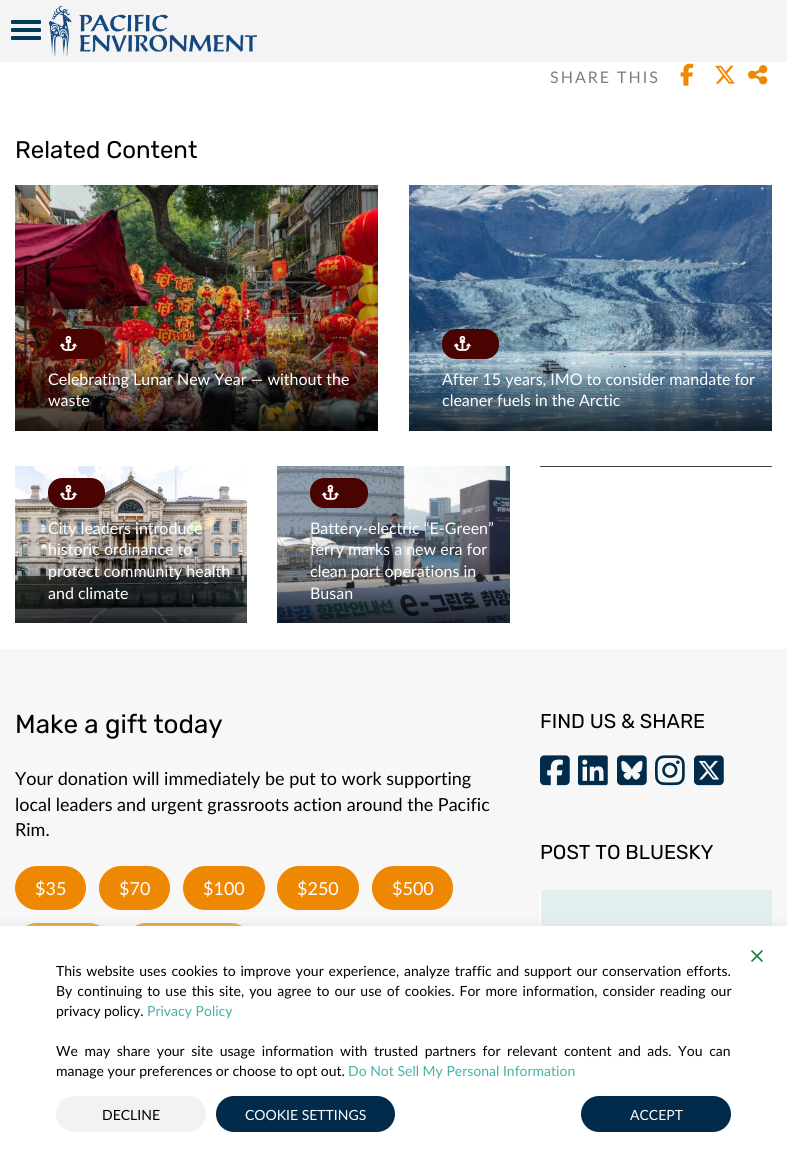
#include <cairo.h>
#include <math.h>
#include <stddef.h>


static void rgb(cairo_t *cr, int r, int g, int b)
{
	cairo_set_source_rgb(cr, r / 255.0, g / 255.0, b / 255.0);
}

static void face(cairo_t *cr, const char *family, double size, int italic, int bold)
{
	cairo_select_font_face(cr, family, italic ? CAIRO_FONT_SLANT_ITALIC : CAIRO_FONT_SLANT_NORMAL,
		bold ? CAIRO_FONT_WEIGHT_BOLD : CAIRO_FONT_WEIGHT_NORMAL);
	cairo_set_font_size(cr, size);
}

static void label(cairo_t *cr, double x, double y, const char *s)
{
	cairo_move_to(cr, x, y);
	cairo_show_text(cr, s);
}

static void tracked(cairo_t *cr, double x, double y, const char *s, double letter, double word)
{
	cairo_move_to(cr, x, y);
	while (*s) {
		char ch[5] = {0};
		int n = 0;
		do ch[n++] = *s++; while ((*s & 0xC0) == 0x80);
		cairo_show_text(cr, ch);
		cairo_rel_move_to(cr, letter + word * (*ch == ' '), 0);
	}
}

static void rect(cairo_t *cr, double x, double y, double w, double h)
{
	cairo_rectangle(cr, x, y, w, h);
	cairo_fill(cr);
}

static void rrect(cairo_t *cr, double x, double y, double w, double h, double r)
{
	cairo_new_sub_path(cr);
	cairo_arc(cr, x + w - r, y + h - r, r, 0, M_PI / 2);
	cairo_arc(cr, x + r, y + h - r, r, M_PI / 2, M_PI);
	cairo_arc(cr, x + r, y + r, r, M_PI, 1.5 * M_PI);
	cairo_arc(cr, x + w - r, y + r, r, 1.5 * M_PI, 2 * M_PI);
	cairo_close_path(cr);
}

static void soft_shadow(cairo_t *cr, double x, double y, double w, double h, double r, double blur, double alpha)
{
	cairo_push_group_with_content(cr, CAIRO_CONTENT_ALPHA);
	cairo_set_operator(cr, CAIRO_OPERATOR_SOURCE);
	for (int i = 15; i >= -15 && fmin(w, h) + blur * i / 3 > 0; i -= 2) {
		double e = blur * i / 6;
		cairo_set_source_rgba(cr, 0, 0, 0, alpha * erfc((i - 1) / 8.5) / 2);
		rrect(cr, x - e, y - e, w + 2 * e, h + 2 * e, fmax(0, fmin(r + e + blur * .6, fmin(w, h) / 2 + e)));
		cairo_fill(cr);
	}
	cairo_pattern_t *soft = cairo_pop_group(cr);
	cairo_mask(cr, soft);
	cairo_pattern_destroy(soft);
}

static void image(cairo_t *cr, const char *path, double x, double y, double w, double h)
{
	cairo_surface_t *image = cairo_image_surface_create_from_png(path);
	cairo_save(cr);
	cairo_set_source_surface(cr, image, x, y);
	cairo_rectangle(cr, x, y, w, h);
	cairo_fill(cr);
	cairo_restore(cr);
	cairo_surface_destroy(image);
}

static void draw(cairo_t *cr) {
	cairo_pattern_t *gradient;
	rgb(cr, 255, 255, 255);
	cairo_paint(cr);
	rgb(cr, 244, 244, 244);
	rect(cr, 0, 0, 787, 62);
	rgb(cr, 0, 60, 89);
	rrect(cr, 11, 20, 30, 4, 1);
	cairo_fill(cr);
	rrect(cr, 11, 28, 30, 4, 1);
	cairo_fill(cr);
	rrect(cr, 11, 36, 30, 4, 1);
	cairo_fill(cr);
	image(cr, "image0.png", 49, 6, 208, 50);
	face(cr, "Lato", 16, 0, 0);
	rgb(cr, 125, 126, 130);
	tracked(cr, 550, 83, "SHARE THIS", 2, 0);
	image(cr, "image1.png", 680, 63, 14, 23);
	image(cr, "image2.png", 715, 65, 20, 19);
	image(cr, "image3.png", 748, 65, 20, 20);
	face(cr, "Rubik", 24, 0, 0);
	rgb(cr, 0, 0, 0);
	label(cr, 15, 158, "Related Content");
	image(cr, "image4.png", 15, 185, 363, 246);
	rgb(cr, 73, 4, 1);
	rrect(cr, 48, 329, 57, 30, 14);
	cairo_fill(cr);
	image(cr, "image5.png", 60, 335, 17, 16);
	face(cr, "Lato", 16, 0, 0);
	rgb(cr, 255, 255, 255);
	label(cr, 48, 385, "Celebrating Lunar New Year — without the");
	label(cr, 48, 406, "waste");
	image(cr, "image6.png", 409, 185, 363, 246);
	rgb(cr, 73, 4, 1);
	rrect(cr, 442, 329, 57, 30, 14);
	cairo_fill(cr);
	image(cr, "image5.png", 454, 335, 17, 16);
	rgb(cr, 255, 255, 255);
	label(cr, 442, 385, "After 15 years, IMO to consider mandate for");
	label(cr, 442, 406, "cleaner fuels in the Arctic");
	gradient = cairo_pattern_create_linear(656, 397, 656, 467);
	cairo_pattern_add_color_stop_rgba(gradient, 0, 1, 1, 1, 1);
	cairo_pattern_add_color_stop_rgba(gradient, 1, 0.251, 0.251, 0.251, 1);
	cairo_set_source(cr, gradient);
	cairo_pattern_destroy(gradient);
	rect(cr, 540, 466, 232, 1);
	image(cr, "image7.png", 15, 466, 232, 157);
	rgb(cr, 73, 4, 1);
	rrect(cr, 48, 478, 57, 30, 14);
	cairo_fill(cr);
	image(cr, "image5.png", 60, 484, 17, 16);
	rgb(cr, 255, 255, 255);
	label(cr, 48, 534, "City leaders introduce");
	label(cr, 48, 555, "historic ordinance to");
	label(cr, 48, 577, "protect community health");
	label(cr, 48, 599, "and climate");
	image(cr, "image8.png", 277, 466, 233, 157);
	rgb(cr, 73, 4, 1);
	rrect(cr, 310, 478, 58, 30, 14);
	cairo_fill(cr);
	image(cr, "image5.png", 322, 484, 17, 16);
	rgb(cr, 255, 255, 255);
	label(cr, 310, 534, "Battery-electric “E-Green”");
	label(cr, 310, 555, "ferry marks a new era for");
	label(cr, 310, 577, "clean port operations in");
	label(cr, 310, 599, "Busan");
	rgb(cr, 247, 247, 247);
	rect(cr, 0, 649, 787, 277);
	face(cr, "Rubik", 26, 0, 0);
	rgb(cr, 0, 0, 0);
	label(cr, 15, 733, "Make a gift today");
	face(cr, "Lato", 18, 0, 0);
	label(cr, 15, 785, "Your donation will immediately be put to work supporting");
	label(cr, 15, 811, "local leaders and urgent grassroots action around the Pacific");
	label(cr, 15, 836, "Rim.");
	rgb(cr, 238, 136, 2);
	rrect(cr, 15, 866, 71, 44, 22);
	cairo_fill(cr);
	rgb(cr, 255, 255, 255);
	label(cr, 35, 895, "$35");
	rgb(cr, 238, 136, 2);
	rrect(cr, 99, 866, 71, 44, 22);
	cairo_fill(cr);
	rgb(cr, 255, 255, 255);
	label(cr, 119, 895, "$70");
	rgb(cr, 238, 136, 2);
	rrect(cr, 183, 866, 82, 44, 22);
	cairo_fill(cr);
	rgb(cr, 255, 255, 255);
	label(cr, 203, 895, "$100");
	rgb(cr, 238, 136, 2);
	rrect(cr, 277, 866, 82, 44, 22);
	cairo_fill(cr);
	rgb(cr, 255, 255, 255);
	label(cr, 297, 895, "$250");
	rgb(cr, 238, 136, 2);
	rrect(cr, 372, 866, 81, 44, 22);
	cairo_fill(cr);
	rgb(cr, 255, 255, 255);
	label(cr, 392, 895, "$500");
	rgb(cr, 238, 136, 2);
	rrect(cr, 15, 923, 96, 44, 22);
	cairo_fill(cr);
	rrect(cr, 124, 923, 129, 44, 22);
	cairo_fill(cr);
	face(cr, "Rubik", 20, 0, 0);
	rgb(cr, 0, 0, 0);
	label(cr, 540, 728, "FIND US & SHARE");
	image(cr, "image9.png", 540, 755, 30, 31);
	image(cr, "image10.png", 578, 755, 30, 31);
	image(cr, "image11.png", 617, 755, 30, 31);
	image(cr, "image12.png", 655, 755, 30, 31);
	image(cr, "image13.png", 694, 755, 30, 31);
	label(cr, 540, 859, "POST TO BLUESKY");
	image(cr, "image14.png", 540, 890, 232, 36);
	rgb(cr, 221, 221, 221);
	soft_shadow(cr, -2, 927, 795, 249, 0, 5.5, 1);
	rgb(cr, 255, 255, 255);
	rect(cr, 0, 926, 787, 241);
	image(cr, "image15.png", 751, 950, 12, 12);
	face(cr, "Lato", 14, 0, 0);
	rgb(cr, 0, 0, 0);
	tracked(cr, 56, 976, "This website uses cookies to improve your experience, analyze traffic and support our conservation efforts.", 0, 1.25);
	tracked(cr, 56, 996, "By continuing to use this site, you agree to our use of cookies. For more information, consider reading our", 0, 1.5);
	label(cr, 56, 1016, "privacy policy.");
	rgb(cr, 71, 177, 166);
	label(cr, 147, 1016, "Privacy Policy");
	rgb(cr, 0, 0, 0);
	tracked(cr, 56, 1056, "We may share your site usage information with trusted partners for relevant content and ads. You can", 0, 3);
	label(cr, 56, 1076, "manage your preferences or choose to opt out.");
	rgb(cr, 71, 177, 166);
	label(cr, 348, 1076, "Do Not Sell My Personal Information");
	rgb(cr, 242, 242, 242);
	rrect(cr, 56, 1096, 150, 36, 18);
	cairo_fill(cr);
	rgb(cr, 0, 0, 0);
	label(cr, 102, 1120, "DECLINE");
	rgb(cr, 2, 43, 75);
	rrect(cr, 216, 1096, 179, 36, 18);
	cairo_fill(cr);
	rgb(cr, 255, 255, 255);
	label(cr, 245, 1120, "COOKIE SETTINGS");
	rgb(cr, 2, 43, 75);
	rrect(cr, 581, 1096, 150, 36, 18);
	cairo_fill(cr);
	rgb(cr, 255, 255, 255);
	label(cr, 630, 1120, "ACCEPT");
}

int main(void) {
	cairo_surface_t *surface = cairo_image_surface_create(CAIRO_FORMAT_RGB24, 787, 1167);
	cairo_t *cr = cairo_create(surface);
	cairo_font_options_t *options = cairo_font_options_create();
	cairo_font_options_set_hint_metrics(options, CAIRO_HINT_METRICS_OFF);
	cairo_font_options_set_hint_style(options, CAIRO_HINT_STYLE_NONE);
	cairo_set_font_options(cr, options);
	cairo_set_miter_limit(cr, 4);
	draw(cr);
	cairo_surface_write_to_png(surface, "render.png");
	cairo_font_options_destroy(options);
	cairo_destroy(cr);
	cairo_surface_destroy(surface);
	return 0;
}
